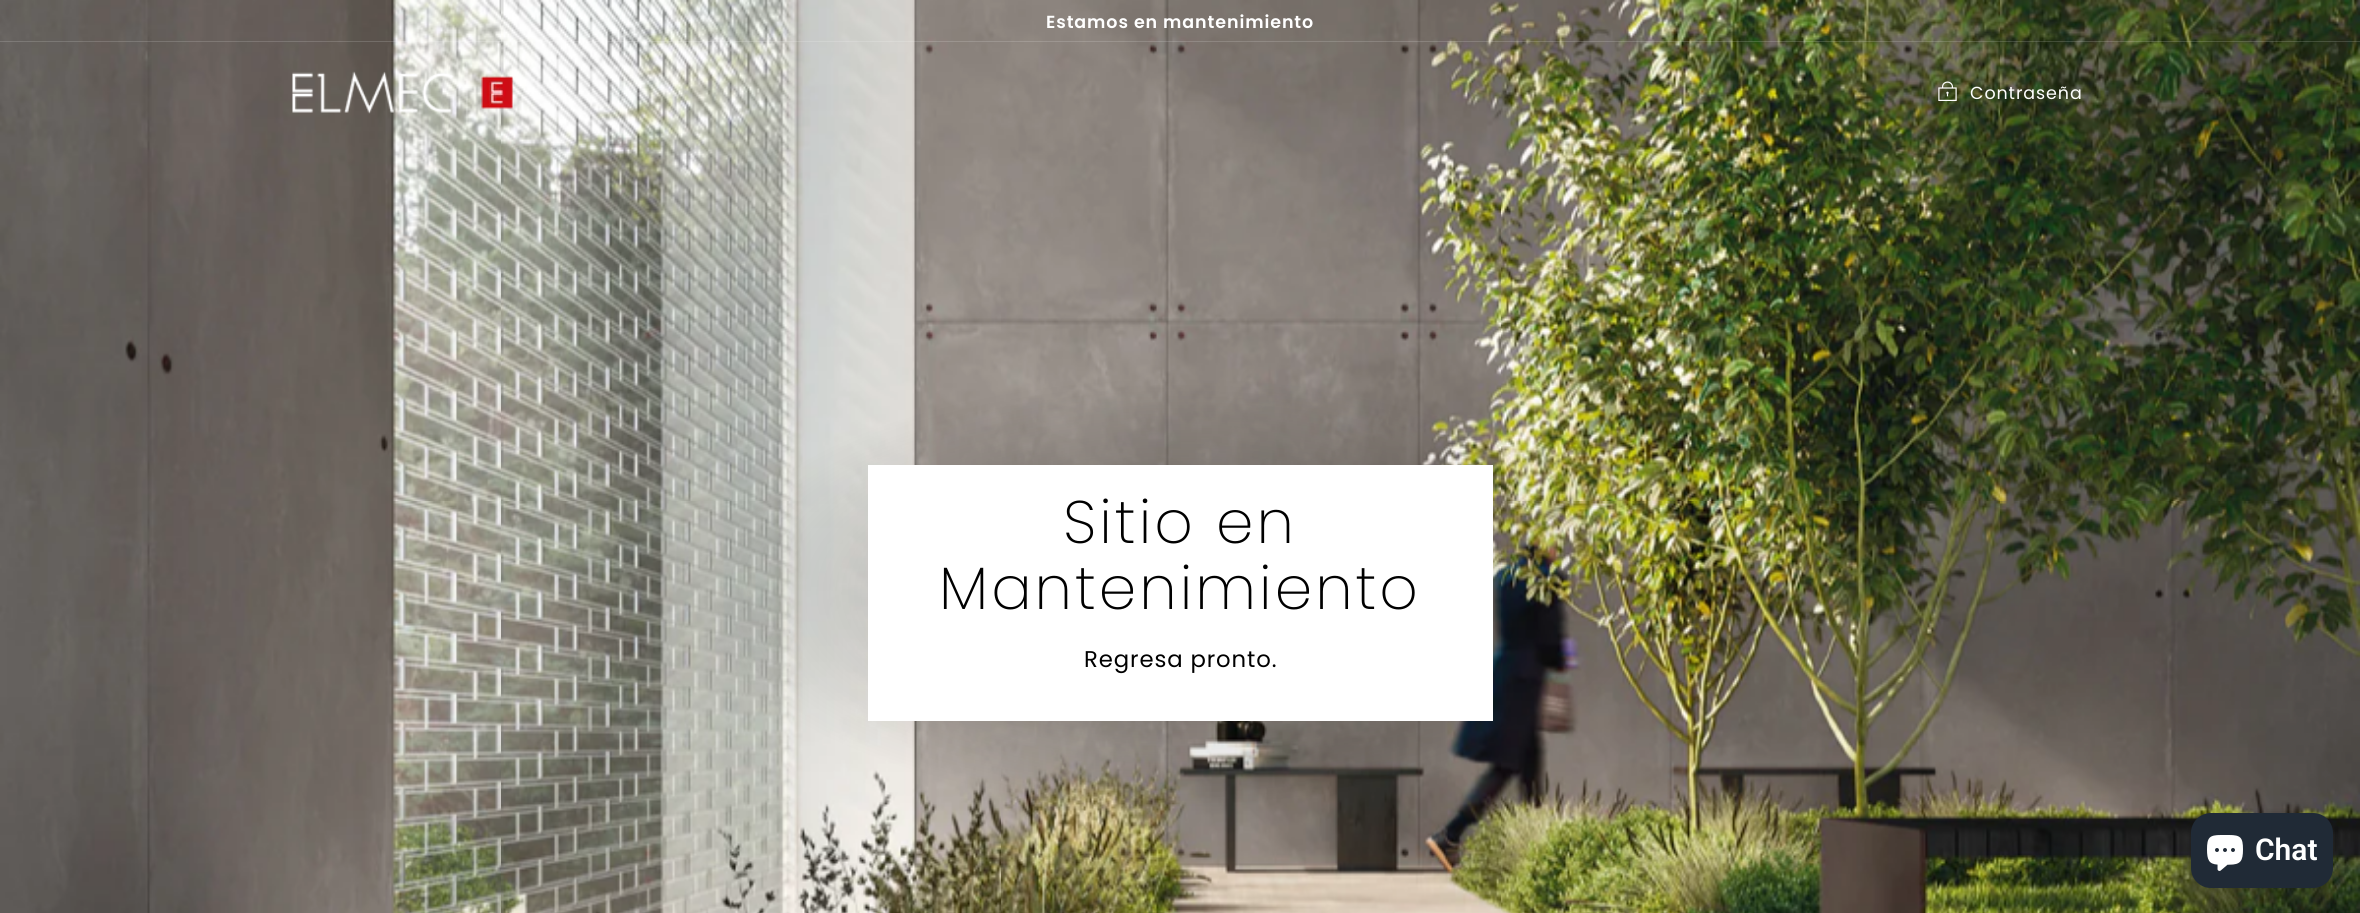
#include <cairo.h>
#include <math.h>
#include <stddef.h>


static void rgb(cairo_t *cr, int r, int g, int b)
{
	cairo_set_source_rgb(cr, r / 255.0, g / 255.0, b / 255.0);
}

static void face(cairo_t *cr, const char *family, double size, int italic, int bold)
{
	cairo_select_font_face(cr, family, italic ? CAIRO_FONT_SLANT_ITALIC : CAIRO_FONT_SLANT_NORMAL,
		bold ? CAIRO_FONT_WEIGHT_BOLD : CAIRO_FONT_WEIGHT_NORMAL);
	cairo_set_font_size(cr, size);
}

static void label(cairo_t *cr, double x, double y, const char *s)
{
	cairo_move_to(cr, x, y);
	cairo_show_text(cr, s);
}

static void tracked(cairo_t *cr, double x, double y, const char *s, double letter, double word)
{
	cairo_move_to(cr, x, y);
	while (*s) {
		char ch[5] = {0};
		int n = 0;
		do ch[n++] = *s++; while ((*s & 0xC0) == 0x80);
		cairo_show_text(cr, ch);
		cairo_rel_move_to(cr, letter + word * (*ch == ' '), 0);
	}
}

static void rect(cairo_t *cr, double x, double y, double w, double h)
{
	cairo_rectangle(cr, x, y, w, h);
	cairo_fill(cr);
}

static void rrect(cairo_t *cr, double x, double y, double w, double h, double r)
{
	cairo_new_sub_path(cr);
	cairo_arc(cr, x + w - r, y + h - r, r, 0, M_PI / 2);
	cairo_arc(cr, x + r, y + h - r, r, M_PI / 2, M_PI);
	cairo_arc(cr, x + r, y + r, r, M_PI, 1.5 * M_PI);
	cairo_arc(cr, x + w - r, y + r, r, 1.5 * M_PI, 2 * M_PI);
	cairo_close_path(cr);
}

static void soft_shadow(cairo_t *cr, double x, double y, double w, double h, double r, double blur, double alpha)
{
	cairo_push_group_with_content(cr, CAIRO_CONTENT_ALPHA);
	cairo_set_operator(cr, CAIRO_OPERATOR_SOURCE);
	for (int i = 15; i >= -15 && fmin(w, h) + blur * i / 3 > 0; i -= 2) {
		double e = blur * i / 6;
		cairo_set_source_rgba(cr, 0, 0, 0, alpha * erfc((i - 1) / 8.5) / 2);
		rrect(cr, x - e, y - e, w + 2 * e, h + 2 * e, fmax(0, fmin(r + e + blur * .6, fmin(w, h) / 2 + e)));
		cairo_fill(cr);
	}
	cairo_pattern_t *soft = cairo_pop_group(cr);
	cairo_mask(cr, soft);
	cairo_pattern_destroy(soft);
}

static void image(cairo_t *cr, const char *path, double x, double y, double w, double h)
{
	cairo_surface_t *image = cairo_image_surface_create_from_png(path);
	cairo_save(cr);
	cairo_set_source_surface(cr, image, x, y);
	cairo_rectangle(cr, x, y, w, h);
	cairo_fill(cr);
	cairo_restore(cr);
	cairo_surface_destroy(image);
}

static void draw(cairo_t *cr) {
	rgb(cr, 255, 255, 255);
	cairo_paint(cr);
	image(cr, "image2.png", 0, 0, 2360, 913);
	face(cr, "Poppins SemiBold", 17.5, 0, 0);
	rgb(cr, 255, 255, 255);
	tracked(cr, 1046, 28, "Estamos en mantenimiento", 0.9, 0);
	cairo_set_source_rgba(cr, 1, 1, 1, 0.15);
	rect(cr, 0, 41, 2360, 1);
	image(cr, "image0.png", 292, 62, 221, 62);
	image(cr, "image1.png", 1938, 81, 19, 20);
	face(cr, "Poppins", 17.5, 0, 0);
	rgb(cr, 255, 255, 255);
	tracked(cr, 1970, 99, "Contraseña", 0.9, 0);
	rect(cr, 868, 465, 625, 256);
	face(cr, "Poppins Light", 60, 0, 0);
	rgb(cr, 0, 0, 0);
	tracked(cr, 1063, 543, "Sitio en", 3, 0);
	tracked(cr, 939, 609, "Mantenimiento", 3, 0);
	face(cr, "Poppins", 22.75, 0, 0);
	tracked(cr, 1084, 667, "Regresa pronto.", 0.9, 0);
	rgb(cr, 0, 0, 0);
	soft_shadow(cr, 2191, 813, 142, 75, 20, 3, 0.15);
	rgb(cr, 32, 42, 54);
	rrect(cr, 2191, 813, 142, 75, 20);
	cairo_fill(cr);
	image(cr, "image3.png", 2207, 835, 36, 36);
	face(cr, "Roboto SemiBold", 30, 0, 0);
	rgb(cr, 255, 255, 255);
	label(cr, 2255, 860, "Chat");
}

int main(void) {
	cairo_surface_t *surface = cairo_image_surface_create(CAIRO_FORMAT_RGB24, 2360, 913);
	cairo_t *cr = cairo_create(surface);
	cairo_font_options_t *options = cairo_font_options_create();
	cairo_font_options_set_hint_metrics(options, CAIRO_HINT_METRICS_OFF);
	cairo_font_options_set_hint_style(options, CAIRO_HINT_STYLE_NONE);
	cairo_set_font_options(cr, options);
	cairo_set_miter_limit(cr, 4);
	draw(cr);
	cairo_surface_write_to_png(surface, "render.png");
	cairo_font_options_destroy(options);
	cairo_destroy(cr);
	cairo_surface_destroy(surface);
	return 0;
}
